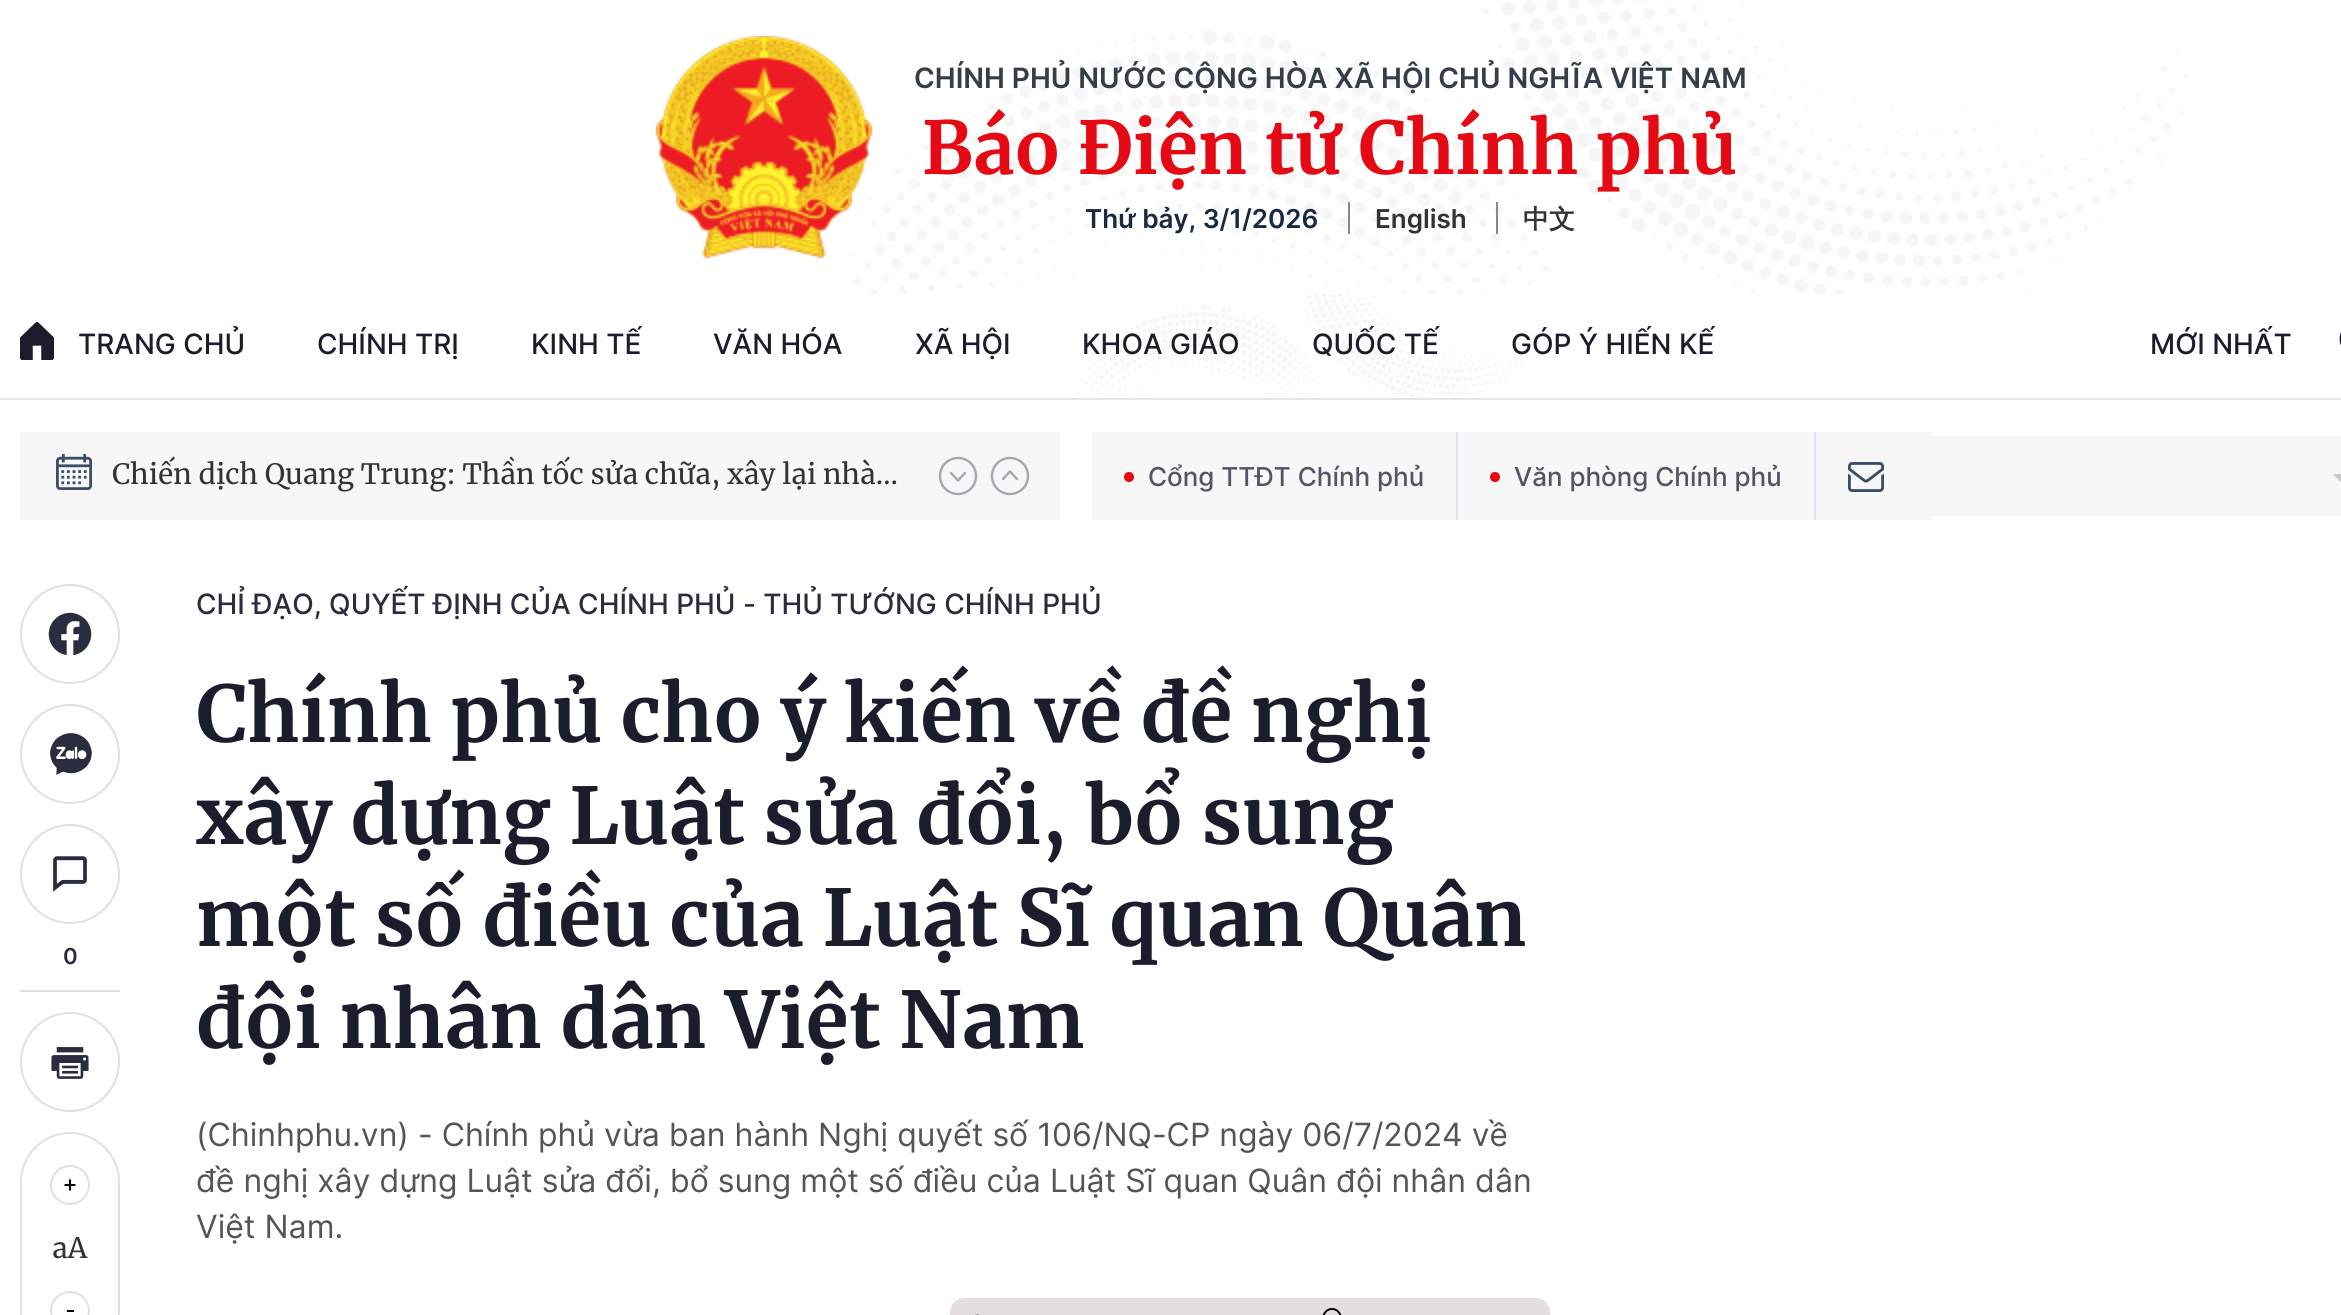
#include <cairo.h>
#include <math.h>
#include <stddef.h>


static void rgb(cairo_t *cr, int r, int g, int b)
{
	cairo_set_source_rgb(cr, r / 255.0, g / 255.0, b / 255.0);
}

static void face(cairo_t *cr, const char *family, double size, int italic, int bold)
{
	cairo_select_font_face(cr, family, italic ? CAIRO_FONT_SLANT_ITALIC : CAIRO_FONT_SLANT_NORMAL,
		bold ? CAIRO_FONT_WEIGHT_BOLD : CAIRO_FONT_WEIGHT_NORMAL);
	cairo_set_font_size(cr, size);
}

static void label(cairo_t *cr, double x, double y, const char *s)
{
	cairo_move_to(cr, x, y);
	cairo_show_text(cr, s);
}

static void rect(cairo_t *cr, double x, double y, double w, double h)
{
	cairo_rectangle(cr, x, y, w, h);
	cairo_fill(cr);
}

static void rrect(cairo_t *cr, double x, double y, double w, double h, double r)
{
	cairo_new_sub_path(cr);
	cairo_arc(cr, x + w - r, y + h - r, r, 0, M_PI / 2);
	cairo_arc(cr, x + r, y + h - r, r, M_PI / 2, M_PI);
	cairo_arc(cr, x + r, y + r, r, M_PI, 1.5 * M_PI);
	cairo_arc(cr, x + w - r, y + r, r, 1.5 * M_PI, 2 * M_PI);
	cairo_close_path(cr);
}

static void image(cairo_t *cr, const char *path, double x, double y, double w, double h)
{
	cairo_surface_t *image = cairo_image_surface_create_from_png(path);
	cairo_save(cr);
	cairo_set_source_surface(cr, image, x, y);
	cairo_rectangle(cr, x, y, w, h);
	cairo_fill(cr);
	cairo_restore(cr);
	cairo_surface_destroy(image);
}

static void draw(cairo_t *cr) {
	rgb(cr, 255, 255, 255);
	cairo_paint(cr);
	rgb(cr, 230, 230, 230);
	rect(cr, 0, 398, 2341, 2);
	image(cr, "image0.png", 839, 0, 1348, 294);
	image(cr, "image1.png", 655, 36, 218, 222);
	face(cr, "Inter SemiBold", 28, 0, 0);
	rgb(cr, 52, 61, 73);
	label(cr, 914, 88, "CHÍNH PHỦ NƯỚC CỘNG HÒA XÃ HỘI CHỦ NGHĨA VIỆT NAM");
	face(cr, "Merriweather", 72.75, 0, 1);
	rgb(cr, 228, 9, 19);
	label(cr, 922, 174, "Báo Điện tử Chính phủ");
	face(cr, "Inter SemiBold", 26, 0, 0);
	rgb(cr, 24, 41, 64);
	label(cr, 1085, 228, "Thứ bảy, 3/1/2026");
	rgb(cr, 51, 51, 51);
	label(cr, 1375, 228, "English");
	rgb(cr, 136, 136, 136);
	rect(cr, 1348, 202, 2, 32);
	face(cr, "WenQuanYi Zen Hei", 26, 0, 1);
	rgb(cr, 51, 51, 51);
	label(cr, 1523, 228, "中文");
	rgb(cr, 136, 136, 136);
	rect(cr, 1496, 202, 2, 32);
	image(cr, "image2.png", 1076, 294, 471, 104);
	image(cr, "image3.png", 20, 322, 34, 38);
	face(cr, "Inter Medium", 28, 0, 0);
	rgb(cr, 27, 29, 45);
	label(cr, 78, 354, "TRANG CHỦ");
	label(cr, 317, 354, "CHÍNH TRỊ");
	label(cr, 531, 354, "KINH TẾ");
	label(cr, 713, 354, "VĂN HÓA");
	label(cr, 915, 354, "XÃ HỘI");
	label(cr, 1082, 354, "KHOA GIÁO");
	label(cr, 1312, 354, "QUỐC TẾ");
	label(cr, 1511, 354, "GÓP Ý HIẾN KẾ");
	label(cr, 2150, 354, "MỚI NHẤT");
	image(cr, "image4.png", 2339, 332, 2, 14);
	rgb(cr, 247, 247, 248);
	rect(cr, 20, 432, 1040, 88);
	image(cr, "image5.png", 56, 454, 36, 36);
	face(cr, "Merriweather", 28, 0, 0);
	rgb(cr, 51, 51, 51);
	label(cr, 112, 484, "Chiến dịch Quang Trung: Thần tốc sửa chữa, xây lại nhà…");
	cairo_new_path(cr);
	cairo_move_to(cr, 976, 476);
	cairo_curve_to(cr, 976, 466, 968, 458, 958, 458);
	cairo_curve_to(cr, 948, 458, 940, 466, 940, 476);
	cairo_curve_to(cr, 940, 486, 948, 494, 958, 494);
	cairo_curve_to(cr, 968, 494, 976, 486, 976, 476);
	cairo_close_path(cr);
	rgb(cr, 165, 166, 174);
	cairo_set_line_width(cr, 2.4);
	cairo_stroke(cr);
	cairo_new_path(cr);
	cairo_move_to(cr, 951, 473);
	cairo_line_to(cr, 958, 480.5);
	cairo_line_to(cr, 965, 473);
	cairo_set_line_cap(cr, CAIRO_LINE_CAP_ROUND);
	cairo_set_line_join(cr, CAIRO_LINE_JOIN_ROUND);
	cairo_stroke(cr);
	cairo_new_path(cr);
	cairo_move_to(cr, 1028, 476);
	cairo_curve_to(cr, 1028, 486, 1020, 494, 1010, 494);
	cairo_curve_to(cr, 1000, 494, 992, 486, 992, 476);
	cairo_curve_to(cr, 992, 466, 1000, 458, 1010, 458);
	cairo_curve_to(cr, 1020, 458, 1028, 466, 1028, 476);
	cairo_close_path(cr);
	cairo_set_line_cap(cr, CAIRO_LINE_CAP_BUTT);
	cairo_set_line_join(cr, CAIRO_LINE_JOIN_MITER);
	cairo_stroke(cr);
	cairo_new_path(cr);
	cairo_move_to(cr, 1003, 479);
	cairo_line_to(cr, 1010, 471.5);
	cairo_line_to(cr, 1017, 479);
	cairo_set_line_cap(cr, CAIRO_LINE_CAP_ROUND);
	cairo_set_line_join(cr, CAIRO_LINE_JOIN_ROUND);
	cairo_stroke(cr);
	rgb(cr, 247, 247, 248);
	rect(cr, 1092, 432, 840, 88);
	rgb(cr, 225, 225, 240);
	rect(cr, 1456, 432, 2, 88);
	rgb(cr, 228, 9, 19);
	cairo_arc(cr, 1129, 477, 5, 0, 2 * M_PI);
	cairo_fill(cr);
	face(cr, "Inter Medium", 26, 0, 0);
	rgb(cr, 83, 85, 101);
	label(cr, 1148, 486, "Cổng TTĐT Chính phủ");
	rgb(cr, 225, 225, 240);
	rect(cr, 1814, 432, 2, 88);
	rgb(cr, 228, 9, 19);
	cairo_new_path(cr);
	cairo_arc(cr, 1495, 477, 5, 0, 2 * M_PI);
	cairo_fill(cr);
	rgb(cr, 83, 85, 101);
	label(cr, 1514, 486, "Văn phòng Chính phủ");
	image(cr, "image6.png", 1848, 462, 36, 30);
	rgb(cr, 247, 247, 248);
	rect(cr, 1932, 436, 409, 80);
	image(cr, "image7.png", 2334, 474, 7, 8);
	cairo_arc(cr, 70, 634, 49, 0, 2 * M_PI);
	rgb(cr, 223, 224, 227);
	cairo_set_line_width(cr, 2);
	cairo_set_line_cap(cr, CAIRO_LINE_CAP_BUTT);
	cairo_set_line_join(cr, CAIRO_LINE_JOIN_MITER);
	cairo_stroke(cr);
	image(cr, "image8.png", 48, 612, 44, 44);
	cairo_arc(cr, 70, 754, 49, 0, 2 * M_PI);
	cairo_stroke(cr);
	image(cr, "image9.png", 50, 733, 42, 42);
	cairo_arc(cr, 70, 874, 49, 0, 2 * M_PI);
	cairo_stroke(cr);
	image(cr, "image10.png", 53, 856, 34, 36);
	rect(cr, 20, 990, 100, 2);
	face(cr, "Inter SemiBold", 22, 0, 0);
	rgb(cr, 42, 45, 64);
	label(cr, 63, 964, "0");
	cairo_new_path(cr);
	cairo_arc(cr, 70, 1062, 49, 0, 2 * M_PI);
	rgb(cr, 223, 224, 227);
	cairo_stroke(cr);
	image(cr, "image11.png", 51, 1047, 38, 32);
	rrect(cr, 21, 1133, 98, 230, 49);
	cairo_stroke(cr);
	image(cr, "image12.png", 50, 1165, 40, 40);
	face(cr, "Merriweather", 28, 0, 0);
	rgb(cr, 51, 51, 51);
	label(cr, 52, 1258, "aA");
	rgb(cr, 0, 0, 0);
	rect(cr, 67, 1310, 7, 2);
	cairo_new_path(cr);
	cairo_arc(cr, 70, 1311, 19, 0, 2 * M_PI);
	rgb(cr, 223, 224, 227);
	cairo_stroke(cr);
	face(cr, "Inter Medium", 28, 0, 0);
	rgb(cr, 42, 45, 64);
	label(cr, 196, 614, "CHỈ ĐẠO, QUYẾT ĐỊNH CỦA CHÍNH PHỦ - THỦ TƯỚNG CHÍNH PHỦ");
	face(cr, "Merriweather", 78, 0, 1);
	rgb(cr, 27, 29, 45);
	label(cr, 196, 742, "Chính phủ cho ý kiến về đề nghị");
	label(cr, 196, 844, "xây dựng Luật sửa đổi, bổ sung");
	label(cr, 196, 946, "một số điều của Luật Sĩ quan Quân");
	label(cr, 196, 1048, "đội nhân dân Việt Nam");
	face(cr, "Inter", 32, 0, 0);
	rgb(cr, 85, 85, 85);
	label(cr, 196, 1146, "(Chinhphu.vn) - Chính phủ vừa ban hành Nghị quyết số 106/NQ-CP ngày 06/7/2024 về");
	label(cr, 196, 1192, "đề nghị xây dựng Luật sửa đổi, bổ sung một số điều của Luật Sĩ quan Quân đội nhân dân");
	label(cr, 196, 1238, "Việt Nam.");
	rgb(cr, 227, 223, 223);
	rrect(cr, 950, 1298, 600, 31, 14);
	cairo_fill(cr);
	image(cr, "image13.png", 975, 1314, 5, 1);
	image(cr, "image14.png", 1322, 1308, 20, 7);
}

int main(void) {
	cairo_surface_t *surface = cairo_image_surface_create(CAIRO_FORMAT_RGB24, 2341, 1315);
	cairo_t *cr = cairo_create(surface);
	cairo_font_options_t *options = cairo_font_options_create();
	cairo_font_options_set_hint_metrics(options, CAIRO_HINT_METRICS_OFF);
	cairo_font_options_set_hint_style(options, CAIRO_HINT_STYLE_NONE);
	cairo_set_font_options(cr, options);
	cairo_set_miter_limit(cr, 4);
	draw(cr);
	cairo_surface_write_to_png(surface, "render.png");
	cairo_font_options_destroy(options);
	cairo_destroy(cr);
	cairo_surface_destroy(surface);
	return 0;
}
